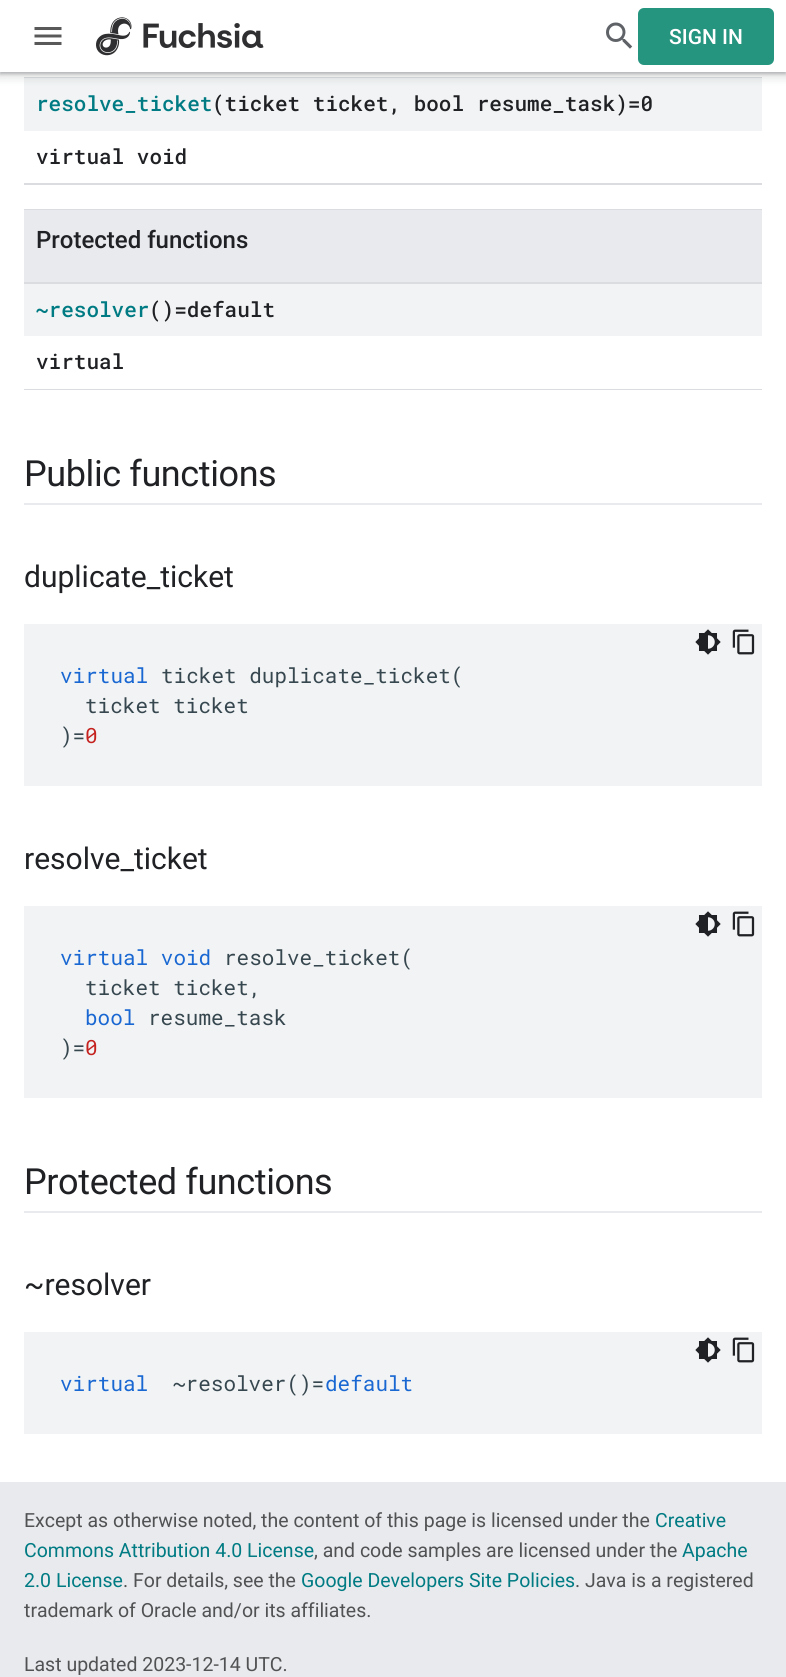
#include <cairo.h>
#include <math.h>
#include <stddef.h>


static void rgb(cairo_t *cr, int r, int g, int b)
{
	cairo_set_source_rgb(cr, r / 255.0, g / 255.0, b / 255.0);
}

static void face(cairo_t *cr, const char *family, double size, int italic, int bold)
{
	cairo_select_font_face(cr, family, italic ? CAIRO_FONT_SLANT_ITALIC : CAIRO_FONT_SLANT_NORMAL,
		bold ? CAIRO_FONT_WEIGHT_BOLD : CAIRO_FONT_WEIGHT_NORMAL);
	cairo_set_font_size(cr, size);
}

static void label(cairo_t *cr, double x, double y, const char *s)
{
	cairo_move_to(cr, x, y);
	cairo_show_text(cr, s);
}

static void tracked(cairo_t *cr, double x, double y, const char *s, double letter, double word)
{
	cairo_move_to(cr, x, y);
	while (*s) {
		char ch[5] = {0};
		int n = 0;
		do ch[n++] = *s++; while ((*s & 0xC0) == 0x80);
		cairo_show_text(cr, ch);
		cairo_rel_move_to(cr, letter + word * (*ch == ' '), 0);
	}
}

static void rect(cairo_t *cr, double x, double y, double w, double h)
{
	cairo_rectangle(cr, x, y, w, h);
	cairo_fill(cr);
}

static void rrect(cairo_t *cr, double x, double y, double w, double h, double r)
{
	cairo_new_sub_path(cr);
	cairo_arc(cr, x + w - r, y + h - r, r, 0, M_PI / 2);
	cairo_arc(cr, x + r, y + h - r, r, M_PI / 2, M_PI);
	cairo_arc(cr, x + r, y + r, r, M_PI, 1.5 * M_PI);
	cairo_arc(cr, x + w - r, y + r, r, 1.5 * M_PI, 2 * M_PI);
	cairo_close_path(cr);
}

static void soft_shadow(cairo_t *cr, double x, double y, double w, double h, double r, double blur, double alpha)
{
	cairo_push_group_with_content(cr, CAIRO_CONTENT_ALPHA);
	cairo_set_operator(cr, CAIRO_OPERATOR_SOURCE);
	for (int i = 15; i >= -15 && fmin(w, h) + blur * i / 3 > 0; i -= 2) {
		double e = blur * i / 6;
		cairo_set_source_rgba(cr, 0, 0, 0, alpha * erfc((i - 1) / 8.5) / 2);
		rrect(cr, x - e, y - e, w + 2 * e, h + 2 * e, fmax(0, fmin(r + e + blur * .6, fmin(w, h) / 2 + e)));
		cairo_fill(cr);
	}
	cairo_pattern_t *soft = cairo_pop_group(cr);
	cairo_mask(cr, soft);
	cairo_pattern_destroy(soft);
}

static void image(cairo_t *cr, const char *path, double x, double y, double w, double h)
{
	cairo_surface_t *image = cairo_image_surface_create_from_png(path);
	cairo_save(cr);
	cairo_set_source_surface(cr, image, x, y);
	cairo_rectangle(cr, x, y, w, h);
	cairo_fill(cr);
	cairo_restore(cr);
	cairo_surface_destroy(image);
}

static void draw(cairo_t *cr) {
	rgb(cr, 232, 234, 237);
	cairo_paint(cr);
	rgb(cr, 255, 255, 255);
	rect(cr, 0, 72, 786, 1410);
	rgb(cr, 218, 220, 224);
	rect(cr, 24, 77, 738, 1);
	rgb(cr, 241, 243, 244);
	rect(cr, 24, 78, 738, 53);
	rgb(cr, 60, 64, 67);
	soft_shadow(cr, -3, -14, 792, 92, 0, 4.5, 0.15);
	soft_shadow(cr, 0, -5, 786, 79, 0, 1.5, 0.3);
	rgb(cr, 255, 255, 255);
	rect(cr, 0, 0, 786, 72);
	image(cr, "image0.png", 34, 27, 28, 18);
	image(cr, "image1.png", 96, 17, 168, 39);
	image(cr, "image2.png", 606, 22, 27, 27);
	rgb(cr, 38, 149, 128);
	rrect(cr, 638, 8, 136, 57, 6);
	cairo_fill(cr);
	face(cr, "Roboto Medium", 21, 0, 0);
	rgb(cr, 255, 255, 255);
	label(cr, 669, 44, "SIGN IN");
	rgb(cr, 218, 220, 224);
	rect(cr, 24, 183, 738, 2);
	face(cr, "Roboto Mono Medium", 21, 0, 0);
	rgb(cr, 0, 123, 131);
	label(cr, 36, 111, "resolve_ticket");
	rgb(cr, 32, 33, 36);
	label(cr, 212, 111, "(ticket ticket, bool resume_task)=0");
	label(cr, 36, 164, "virtual void");
	rgb(cr, 218, 220, 224);
	rect(cr, 24, 209, 738, 1);
	rect(cr, 24, 282, 738, 2);
	rgb(cr, 232, 234, 237);
	rect(cr, 24, 210, 738, 72);
	face(cr, "Roboto Medium", 24, 0, 0);
	rgb(cr, 32, 33, 36);
	label(cr, 36, 248, "Protected functions");
	rgb(cr, 218, 220, 224);
	rect(cr, 24, 389, 738, 1);
	rgb(cr, 241, 243, 244);
	rect(cr, 24, 284, 738, 52);
	face(cr, "Roboto Mono Medium", 21, 0, 0);
	rgb(cr, 0, 123, 131);
	label(cr, 36, 317, "~resolver");
	rgb(cr, 32, 33, 36);
	label(cr, 149, 317, "()=default");
	label(cr, 36, 369, "virtual");
	rgb(cr, 232, 234, 237);
	rect(cr, 24, 503, 738, 2);
	face(cr, "Roboto", 36, 0, 0);
	rgb(cr, 32, 33, 36);
	tracked(cr, 24, 486, "Public functions", -0.4, 0);
	face(cr, "Roboto", 30, 0, 0);
	label(cr, 24, 587, "duplicate_ticket");
	rgb(cr, 241, 243, 244);
	rect(cr, 24, 624, 738, 162);
	image(cr, "image3.png", 695, 629, 26, 26);
	image(cr, "image4.png", 732, 629, 23, 26);
	face(cr, "Roboto Mono", 21, 0, 0);
	rgb(cr, 25, 103, 210);
	label(cr, 60, 683, "virtual");
	rgb(cr, 55, 71, 79);
	label(cr, 161, 683, "ticket duplicate_ticket(");
	label(cr, 85, 713, "ticket ticket");
	label(cr, 60, 743, ")=");
	rgb(cr, 197, 34, 31);
	label(cr, 85, 743, "0");
	face(cr, "Roboto", 30, 0, 0);
	rgb(cr, 32, 33, 36);
	label(cr, 24, 869, "resolve_ticket");
	rgb(cr, 241, 243, 244);
	rect(cr, 24, 906, 738, 192);
	image(cr, "image3.png", 695, 911, 26, 26);
	image(cr, "image4.png", 732, 911, 23, 26);
	face(cr, "Roboto Mono", 21, 0, 0);
	rgb(cr, 25, 103, 210);
	label(cr, 60, 965, "virtual void");
	rgb(cr, 55, 71, 79);
	label(cr, 224, 965, "resolve_ticket(");
	label(cr, 85, 995, "ticket ticket,");
	rgb(cr, 25, 103, 210);
	label(cr, 85, 1025, "bool");
	rgb(cr, 55, 71, 79);
	label(cr, 148, 1025, "resume_task");
	label(cr, 60, 1055, ")=");
	rgb(cr, 197, 34, 31);
	label(cr, 85, 1055, "0");
	rgb(cr, 232, 234, 237);
	rect(cr, 24, 1211, 738, 2);
	face(cr, "Roboto", 36, 0, 0);
	rgb(cr, 32, 33, 36);
	tracked(cr, 24, 1194, "Protected functions", -0.4, 0);
	face(cr, "Roboto", 30, 0, 0);
	label(cr, 24, 1295, "~resolver");
	rgb(cr, 241, 243, 244);
	rect(cr, 24, 1332, 738, 102);
	image(cr, "image3.png", 695, 1337, 26, 26);
	image(cr, "image4.png", 732, 1337, 23, 26);
	face(cr, "Roboto Mono", 21, 0, 0);
	rgb(cr, 25, 103, 210);
	label(cr, 60, 1391, "virtual");
	rgb(cr, 55, 71, 79);
	label(cr, 173, 1391, "~resolver()=");
	rgb(cr, 25, 103, 210);
	label(cr, 325, 1391, "default");
	face(cr, "Roboto", 19.5, 0, 0);
	rgb(cr, 81, 82, 83);
	label(cr, 24, 1527, "Except as otherwise noted, the content of this page is licensed under the");
	rgb(cr, 0, 123, 131);
	label(cr, 655, 1527, "Creative");
	label(cr, 24, 1557, "Commons Attribution 4.0 License");
	rgb(cr, 81, 82, 83);
	label(cr, 314, 1557, ", and code samples are licensed under the");
	rgb(cr, 0, 123, 131);
	label(cr, 682, 1557, "Apache");
	label(cr, 24, 1587, "2.0 License");
	rgb(cr, 81, 82, 83);
	label(cr, 123, 1587, ". For details, see the");
	rgb(cr, 0, 123, 131);
	label(cr, 301, 1587, "Google Developers Site Policies");
	rgb(cr, 81, 82, 83);
	label(cr, 575, 1587, ". Java is a registered");
	label(cr, 24, 1617, "trademark of Oracle and/or its affiliates.");
	label(cr, 24, 1671, "Last updated 2023-12-14 UTC.");
}

int main(void) {
	cairo_surface_t *surface = cairo_image_surface_create(CAIRO_FORMAT_RGB24, 786, 1677);
	cairo_t *cr = cairo_create(surface);
	cairo_font_options_t *options = cairo_font_options_create();
	cairo_font_options_set_hint_metrics(options, CAIRO_HINT_METRICS_OFF);
	cairo_font_options_set_hint_style(options, CAIRO_HINT_STYLE_NONE);
	cairo_set_font_options(cr, options);
	cairo_set_miter_limit(cr, 4);
	draw(cr);
	cairo_surface_write_to_png(surface, "render.png");
	cairo_font_options_destroy(options);
	cairo_destroy(cr);
	cairo_surface_destroy(surface);
	return 0;
}
